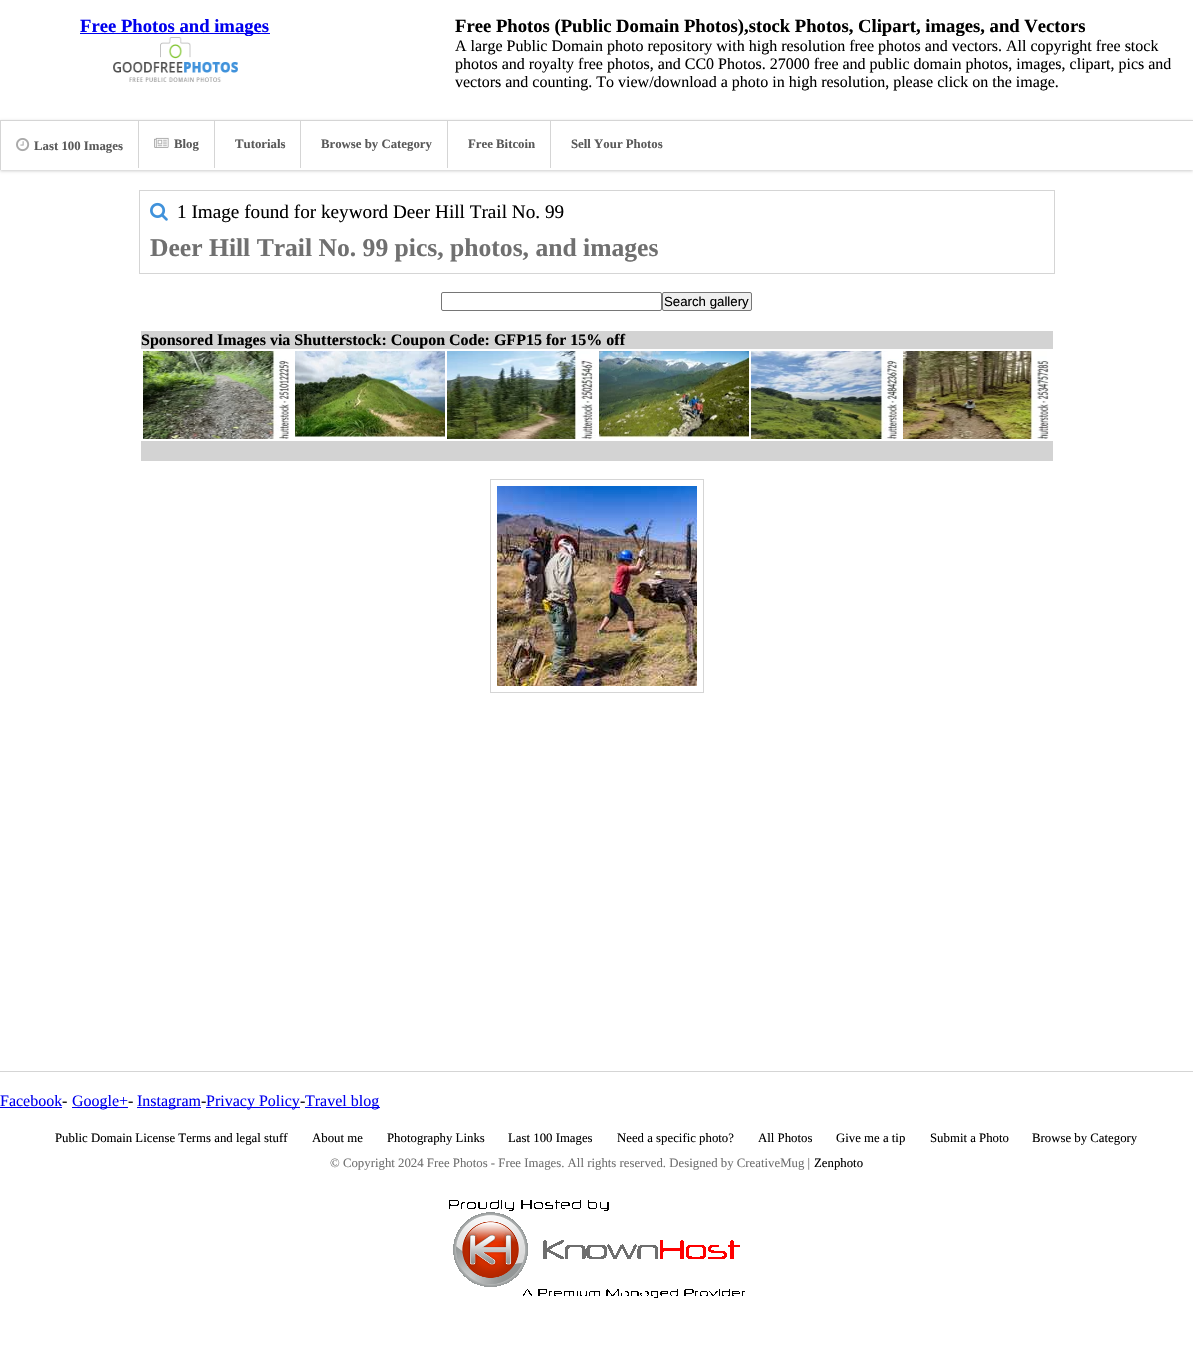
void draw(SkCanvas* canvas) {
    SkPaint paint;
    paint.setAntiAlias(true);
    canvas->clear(0xFFFFFFFF);
    paint.setColor(0xFF0000EE);
    canvas->drawRect(SkRect::MakeXYWH(80, 33, 190, 1), paint);
    SkFont font1(fontMgr->matchFamilyStyle("Liberation Serif", SkFontStyle::Bold()), 18.65f);
    font1.setSubpixel(true);
    canvas->drawString("Free Photos and images", 80, 32, font1, paint);
    canvas->drawImageRect(SkImages::DeferredFromEncodedData(SkData::MakeFromFileName("img1.png")), SkRect::MakeXYWH(113, 37, 125, 45), SkSamplingOptions());
    paint.setColor(0xFF000000);
    canvas->drawString("Free Photos (Public Domain Photos),stock Photos, Clipart, images, and Vectors", 455, 32, font1, paint);
    SkFont font2(fontMgr->matchFamilyStyle("Liberation Serif", SkFontStyle::Normal()), 16);
    font2.setSubpixel(true);
    canvas->drawString("A large Public Domain photo repository with high resolution free photos and vectors. All copyright free stock", 455, 51, font2, paint);
    canvas->drawString("photos and royalty free photos, and CC0 Photos. 27000 free and public domain photos, images, clipart, pics and", 455, 69, font2, paint);
    canvas->drawString("vectors and counting. To view/download a photo in high resolution, please click on the image.", 455, 87, font2, paint);
    canvas->save();
    canvas->clipPath(SkPathBuilder(SkPathFillType::kEvenOdd).moveTo(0, 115).lineTo(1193, 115).lineTo(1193, 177).lineTo(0, 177).close().moveTo(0, 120).lineTo(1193, 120).lineTo(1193, 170).lineTo(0, 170).close().detach(), true);
    paint.setColor(0x33000000);
    paint.setMaskFilter(SkMaskFilter::MakeBlur(kNormal_SkBlurStyle, 1.5f));
    canvas->drawRect(SkRect::MakeXYWH(0, 121, 1193, 50), paint);
    paint.setMaskFilter(nullptr);
    canvas->restore();
    paint.setColor(0xFFD5D5D5);
    canvas->drawRect(SkRect::MakeXYWH(0, 120, 1193, 1), paint);
    canvas->drawRect(SkRect::MakeXYWH(0, 121, 1, 49), paint);
    canvas->drawImageRect(SkImages::DeferredFromEncodedData(SkData::MakeFromFileName("img2.png")), SkRect::MakeXYWH(16, 138, 14, 14), SkSamplingOptions());
    SkFont font3(fontMgr->matchFamilyStyle("Liberation Serif", SkFontStyle::Bold()), 12.8f);
    font3.setSubpixel(true);
    paint.setColor(0xFF595959);
    canvas->drawString("Last 100 Images", 34, 150, font3, paint);
    paint.setColor(0xFFD5D5D5);
    canvas->drawRect(SkRect::MakeXYWH(138, 121, 1, 47), paint);
    canvas->drawImageRect(SkImages::DeferredFromEncodedData(SkData::MakeFromFileName("img3.png")), SkRect::MakeXYWH(154, 137, 15, 11), SkSamplingOptions());
    paint.setColor(0xFF595959);
    canvas->drawString("Blog", 174, 148, font3, paint);
    paint.setColor(0xFFD5D5D5);
    canvas->drawRect(SkRect::MakeXYWH(214, 121, 1, 47), paint);
    paint.setColor(0xFF595959);
    canvas->drawString("Tutorials", 235, 148, font3, paint);
    paint.setColor(0xFFD5D5D5);
    canvas->drawRect(SkRect::MakeXYWH(300, 121, 1, 47), paint);
    paint.setColor(0xFF595959);
    canvas->drawString("Browse by Category", 321, 148, font3, paint);
    paint.setColor(0xFFD5D5D5);
    canvas->drawRect(SkRect::MakeXYWH(447, 121, 1, 47), paint);
    paint.setColor(0xFF595959);
    canvas->drawString("Free Bitcoin", 468, 148, font3, paint);
    paint.setColor(0xFFD5D5D5);
    canvas->drawRect(SkRect::MakeXYWH(550, 121, 1, 47), paint);
    paint.setColor(0xFF595959);
    canvas->drawString("Sell Your Photos", 571, 148, font3, paint);
    paint.setStyle(SkPaint::kStroke_Style);
    paint.setStrokeWidth(1);
    paint.setColor(0xFFD5D5D5);
    canvas->drawRect(SkRect::MakeXYWH(139.5f, 190.5f, 915, 83), paint);
    canvas->drawImageRect(SkImages::DeferredFromEncodedData(SkData::MakeFromFileName("img4.png")), SkRect::MakeXYWH(150, 202, 18, 19), SkSamplingOptions());
    SkFont font4(fontMgr->matchFamilyStyle("Liberation Serif", SkFontStyle::Normal()), 19.2f);
    font4.setSubpixel(true);
    paint.setStyle(SkPaint::kFill_Style);
    paint.setColor(0xFF000000);
    canvas->drawString("1 Image found for keyword Deer Hill Trail No. 99", 177, 218, font4, paint);
    SkFont font5(fontMgr->matchFamilyStyle("Liberation Serif", SkFontStyle::Bold()), 25.6f);
    font5.setSubpixel(true);
    paint.setColor(0xFF707070);
    canvas->drawString("Deer Hill Trail No. 99 pics, photos, and images", 150, 256, font5, paint);
    paint.setStyle(SkPaint::kStroke_Style);
    paint.setColor(0xFF767676);
    canvas->drawRoundRect(SkRect::MakeXYWH(441.5f, 292.5f, 220, 18), 1.5f, 1.5f, paint);
    paint.setStyle(SkPaint::kFill_Style);
    paint.setColor(0xFFEFEFEF);
    canvas->drawRoundRect(SkRect::MakeXYWH(662.5f, 292.5f, 89, 18), 1.5f, 1.5f, paint);
    paint.setStyle(SkPaint::kStroke_Style);
    paint.setColor(0xFF767676);
    canvas->drawRoundRect(SkRect::MakeXYWH(662.5f, 292.5f, 89, 18), 1.5f, 1.5f, paint);
    SkFont font6(fontMgr->matchFamilyStyle("Liberation Sans", SkFontStyle::Normal()), 13.25f);
    font6.setSubpixel(true);
    paint.setStyle(SkPaint::kFill_Style);
    paint.setColor(0xFF000000);
    canvas->drawString("Search gallery", 664, 306, font6, paint);
    paint.setColor(0xFFD3D3D3);
    canvas->drawRect(SkRect::MakeXYWH(141, 331, 912, 18), paint);
    SkFont font7(fontMgr->matchFamilyStyle("Liberation Serif", SkFontStyle::Bold()), 16);
    font7.setSubpixel(true);
    paint.setColor(0xFF000000);
    canvas->drawString("Sponsored Images via Shutterstock: Coupon Code: GFP15 for 15% off", 141, 345, font7, paint);
    canvas->drawImageRect(SkImages::DeferredFromEncodedData(SkData::MakeFromFileName("img5.png")), SkRect::MakeXYWH(143, 351, 146, 88), SkSamplingOptions());
    canvas->drawImageRect(SkImages::DeferredFromEncodedData(SkData::MakeFromFileName("img6.png")), SkRect::MakeXYWH(295, 351, 150, 87), SkSamplingOptions());
    canvas->drawImageRect(SkImages::DeferredFromEncodedData(SkData::MakeFromFileName("img7.png")), SkRect::MakeXYWH(447, 351, 149, 88), SkSamplingOptions());
    canvas->drawImageRect(SkImages::DeferredFromEncodedData(SkData::MakeFromFileName("img8.png")), SkRect::MakeXYWH(599, 351, 150, 88), SkSamplingOptions());
    canvas->drawImageRect(SkImages::DeferredFromEncodedData(SkData::MakeFromFileName("img9.png")), SkRect::MakeXYWH(751, 351, 148, 88), SkSamplingOptions());
    canvas->drawImageRect(SkImages::DeferredFromEncodedData(SkData::MakeFromFileName("img10.png")), SkRect::MakeXYWH(903, 351, 146, 88), SkSamplingOptions());
    paint.setColor(0xFFD3D3D3);
    canvas->drawRect(SkRect::MakeXYWH(141, 441, 912, 20), paint);
    paint.setStyle(SkPaint::kStroke_Style);
    paint.setColor(0xFFD5D5D5);
    canvas->drawRect(SkRect::MakeXYWH(490.5f, 479.5f, 213, 213), paint);
    canvas->drawImageRect(SkImages::DeferredFromEncodedData(SkData::MakeFromFileName("img11.png")), SkRect::MakeXYWH(497, 486, 200, 200), SkSamplingOptions());
    paint.setStyle(SkPaint::kFill_Style);
    canvas->drawRect(SkRect::MakeXYWH(0, 1071, 1193, 1), paint);
    paint.setColor(0xFF0000EE);
    canvas->drawString("Facebook", 0, 1106, font2, paint);
    canvas->drawRect(SkRect::MakeXYWH(0, 1107, 62, 1), paint);
    paint.setColor(0xFF000000);
    canvas->drawString("-", 62, 1106, font2, paint);
    paint.setColor(0xFF0000EE);
    canvas->drawRect(SkRect::MakeXYWH(72, 1107, 56, 1), paint);
    canvas->drawString("Google+", 72, 1106, font2, paint);
    paint.setColor(0xFF000000);
    canvas->drawString("-", 128, 1106, font2, paint);
    paint.setColor(0xFF0000EE);
    canvas->drawRect(SkRect::MakeXYWH(137, 1107, 64, 1), paint);
    canvas->drawString("Instagram", 137, 1106, font2, paint);
    paint.setColor(0xFF000000);
    canvas->drawString("-", 201, 1106, font2, paint);
    paint.setColor(0xFF0000EE);
    canvas->drawRect(SkRect::MakeXYWH(206, 1107, 94, 1), paint);
    canvas->drawString("Privacy Policy", 206, 1106, font2, paint);
    paint.setColor(0xFF000000);
    canvas->drawString("-", 300, 1106, font2, paint);
    paint.setColor(0xFF0000EE);
    canvas->drawRect(SkRect::MakeXYWH(305, 1107, 75, 1), paint);
    canvas->drawString("Travel blog", 305, 1106, font2, paint);
    SkFont font8(fontMgr->matchFamilyStyle("Liberation Serif", SkFontStyle::Normal()), 12.8f);
    font8.setSubpixel(true);
    paint.setColor(0xFF000000);
    canvas->drawString("Public Domain License Terms and legal stuff", 55, 1142, font8, paint);
    canvas->drawString("About me", 312, 1142, font8, paint);
    canvas->drawString("Photography Links", 387, 1142, font8, paint);
    canvas->drawString("Last 100 Images", 508, 1142, font8, paint);
    canvas->drawString("Need a specific photo?", 617, 1142, font8, paint);
    canvas->drawString("All Photos", 758, 1142, font8, paint);
    canvas->drawString("Give me a tip", 836, 1142, font8, paint);
    canvas->drawString("Submit a Photo", 930, 1142, font8, paint);
    canvas->drawString("Browse by Category", 1032, 1142, font8, paint);
    paint.setColor(0xFF707070);
    canvas->drawString("© Copyright 2024 Free Photos - Free Images. All rights reserved. Designed by CreativeMug |", 330, 1167, font8, paint);
    paint.setColor(0xFF000000);
    canvas->drawString("Zenphoto", 814, 1167, font8, paint);
    canvas->drawImageRect(SkImages::DeferredFromEncodedData(SkData::MakeFromFileName("img12.png")), SkRect::MakeXYWH(449, 1200, 296, 98), SkSamplingOptions());
}
